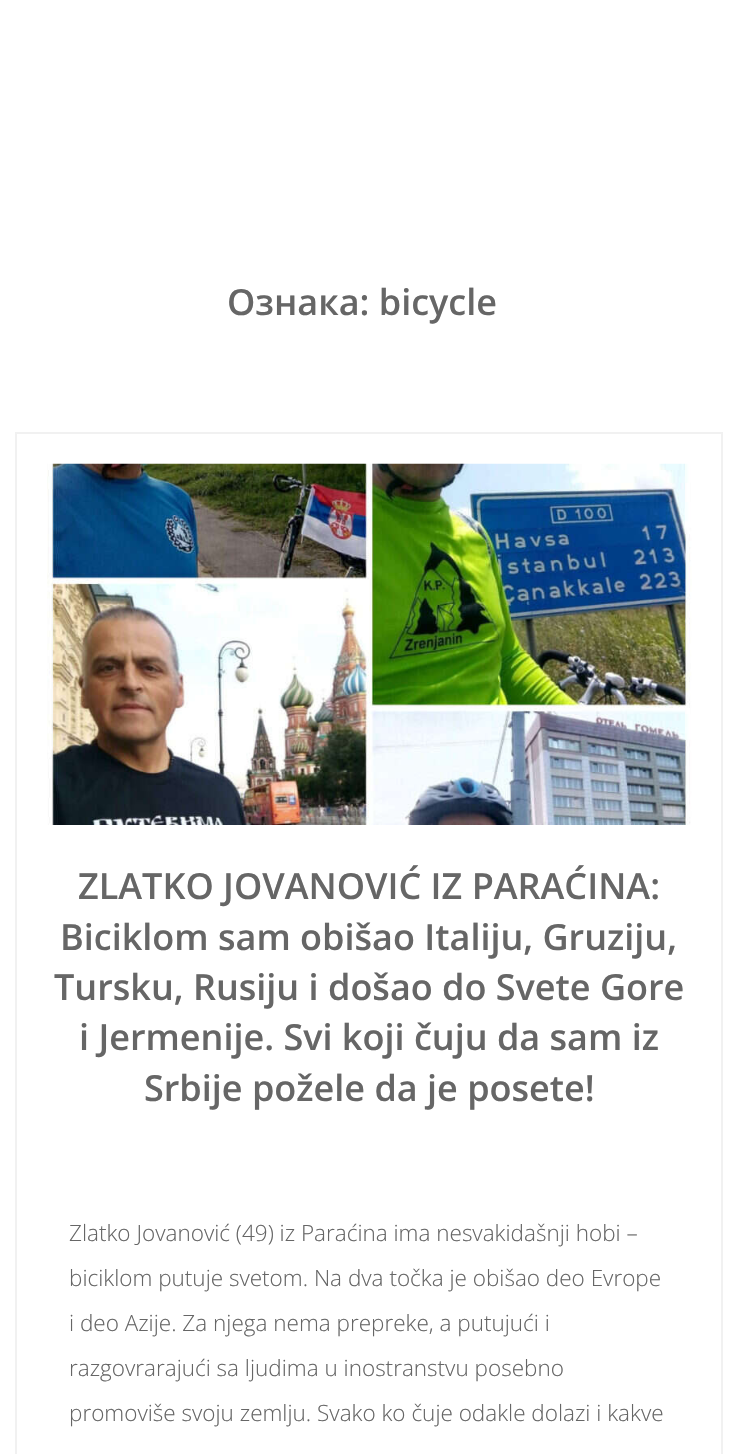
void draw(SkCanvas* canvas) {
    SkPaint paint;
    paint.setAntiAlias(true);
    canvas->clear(0xFFFFFFFF);
    SkFont font1(fontMgr->matchFamilyStyle("Open Sans", SkFontStyle(600, SkFontStyle::kNormal_Width, SkFontStyle::kUpright_Slant)), 36);
    font1.setSubpixel(true);
    paint.setColor(0xFF666666);
    canvas->drawString("Ознака: bicycle", 227, 315, font1, paint);
    paint.setStyle(SkPaint::kStroke_Style);
    paint.setStrokeWidth(2);
    paint.setColor(0xFFF1F1F1);
    canvas->drawRect(SkRect::MakeXYWH(16, 433, 706, 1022), paint);
    canvas->drawImageRect(SkImages::DeferredFromEncodedData(SkData::MakeFromFileName("img1.png")), SkRect::MakeXYWH(47, 463, 645, 362), SkSamplingOptions());
    paint.setStyle(SkPaint::kFill_Style);
    paint.setColor(0xFF666666);
    canvas->drawString("ZLATKO JOVANOVIĆ IZ PARAĆINA:", 78, 899, font1, paint);
    canvas->drawString("Biciklom sam obišao Italiju, Gruziju,", 60, 950, font1, paint);
    canvas->drawString("Tursku, Rusiju i došao do Svete Gore", 54, 1000, font1, paint);
    canvas->drawString("i Jermenije. Svi koji čuju da sam iz", 79, 1050, font1, paint);
    canvas->drawString("Srbije požele da je posete!", 144, 1101, font1, paint);
    SkFont font2(fontMgr->matchFamilyStyle("Open Sans", SkFontStyle(300, SkFontStyle::kNormal_Width, SkFontStyle::kUpright_Slant)), 22.5f);
    font2.setSubpixel(true);
    canvas->drawString("Zlatko Jovanović (49) iz Paraćina ima nesvakidašnji hobi –", 69, 1241, font2, paint);
    canvas->drawString("biciklom putuje svetom. Na dva točka je obišao deo Evrope", 69, 1286, font2, paint);
    canvas->drawString("i deo Azije. Za njega nema prepreke, a putujući i", 69, 1331, font2, paint);
    canvas->drawString("razgovrarajući sa ljudima u inostranstvu posebno", 69, 1376, font2, paint);
    canvas->drawString("promoviše svoju zemlju. Svako ko čuje odakle dolazi i kakve", 69, 1421, font2, paint);
}
